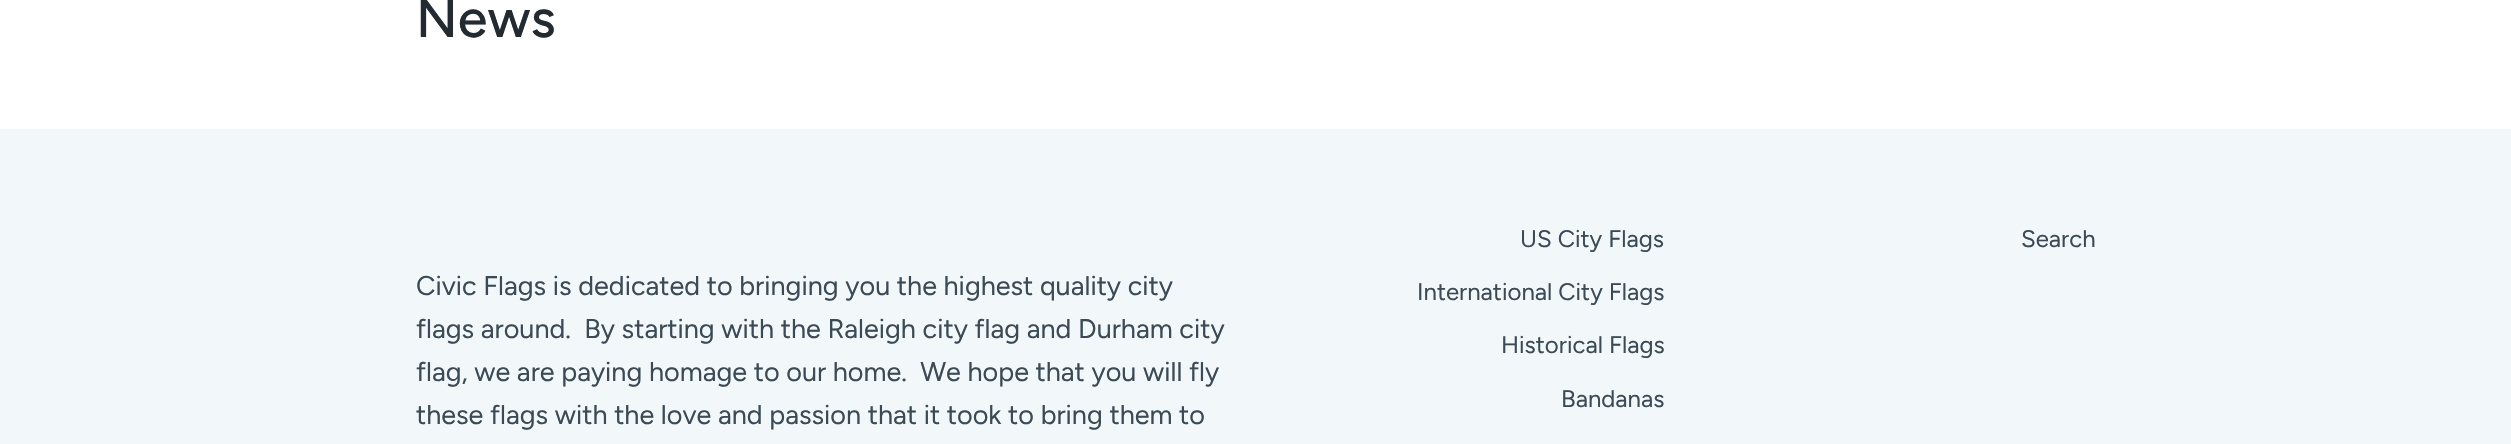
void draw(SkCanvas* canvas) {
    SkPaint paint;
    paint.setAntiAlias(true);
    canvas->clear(0xFFFFFFFF);
    SkFont font1(fontMgr->matchFamilyStyle("Figtree", SkFontStyle(500, SkFontStyle::kNormal_Width, SkFontStyle::kUpright_Slant)), 54);
    font1.setSubpixel(true);
    paint.setColor(0xFF212B31);
    canvas->drawString("News", 416, 37, font1, paint);
    paint.setColor(0xFFF2F7FA);
    canvas->drawRect(SkRect::MakeXYWH(0, 129, 2511, 315), paint);
    SkFont font2(fontMgr->matchFamilyStyle("Figtree", SkFontStyle::Normal()), 27);
    font2.setSubpixel(true);
    paint.setColor(0xFF3A4B55);
    canvas->drawString("Civic Flags is dedicated to bringing you the highest quality city", 416, 295, font2, paint);
    canvas->drawString("flags around.  By starting with the Raleigh city flag and Durham city", 416, 338, font2, paint);
    canvas->drawString("flag, we are paying homage to our home.  We hope that you will fly", 416, 381, font2, paint);
    canvas->drawString("these flags with the love and passion that it took to bring them to", 416, 424, font2, paint);
    SkFont font3(fontMgr->matchFamilyStyle("Figtree", SkFontStyle::Normal()), 24);
    font3.setSubpixel(true);
    canvas->drawString("US City Flags", 1520, 247, font3, paint);
    canvas->drawString("International City Flags", 1417, 300, font3, paint);
    canvas->drawString("Historical Flags", 1501, 353, font3, paint);
    canvas->drawString("Bandanas", 1561, 407, font3, paint);
    canvas->drawString("Search", 2021, 247, font3, paint);
}
